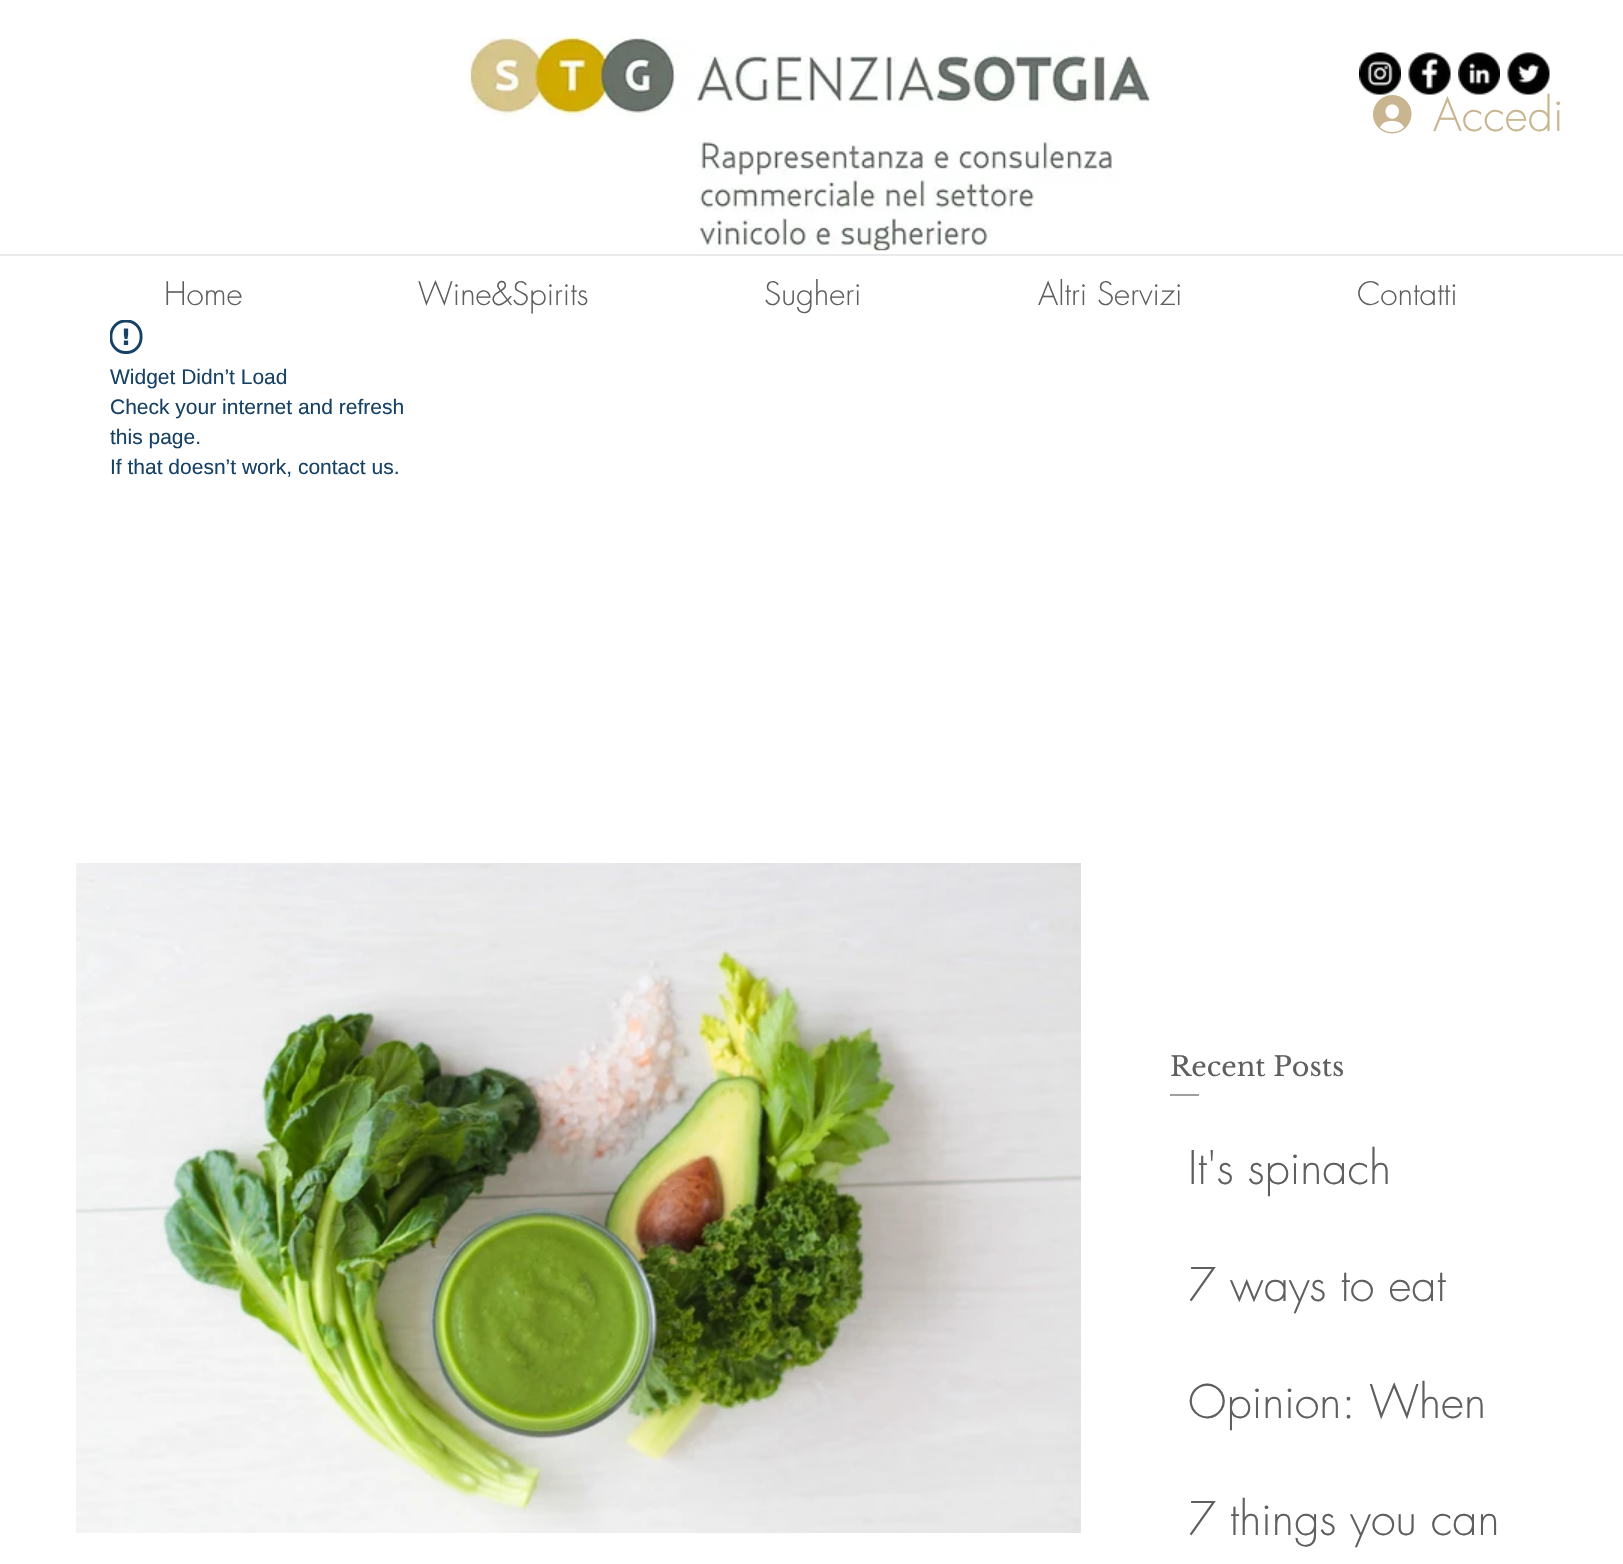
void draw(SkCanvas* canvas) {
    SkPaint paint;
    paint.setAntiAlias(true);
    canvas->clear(0xFFFFFFFF);
    canvas->drawImageRect(SkImages::DeferredFromEncodedData(SkData::MakeFromFileName("img1.png")), SkRect::MakeXYWH(468, 37, 684, 214), SkSamplingOptions());
    canvas->drawImageRect(SkImages::DeferredFromEncodedData(SkData::MakeFromFileName("img2.png")), SkRect::MakeXYWH(1359, 52, 42, 43), SkSamplingOptions());
    canvas->drawImageRect(SkImages::DeferredFromEncodedData(SkData::MakeFromFileName("img3.png")), SkRect::MakeXYWH(1408, 52, 43, 43), SkSamplingOptions());
    canvas->drawImageRect(SkImages::DeferredFromEncodedData(SkData::MakeFromFileName("img4.png")), SkRect::MakeXYWH(1458, 52, 42, 43), SkSamplingOptions());
    canvas->drawImageRect(SkImages::DeferredFromEncodedData(SkData::MakeFromFileName("img5.png")), SkRect::MakeXYWH(1507, 52, 43, 43), SkSamplingOptions());
    canvas->drawImageRect(SkImages::DeferredFromEncodedData(SkData::MakeFromFileName("img6.png")), SkRect::MakeXYWH(1373, 95, 39, 39), SkSamplingOptions());
    SkFont font1(fontMgr->matchFamilyStyle("futura", SkFontStyle(300, SkFontStyle::kNormal_Width, SkFontStyle::kUpright_Slant)), 45);
    font1.setSubpixel(true);
    paint.setColor(0xFFC9B691);
    canvas->drawString("Accedi", 1433, 131, font1, paint);
    paint.setColor(0xFFE9E9E9);
    canvas->drawRect(SkRect::MakeXYWH(0, 254, 1623, 2), paint);
    SkFont font2(fontMgr->matchFamilyStyle("futura", SkFontStyle(300, SkFontStyle::kNormal_Width, SkFontStyle::kUpright_Slant)), 31.5f);
    font2.setSubpixel(true);
    paint.setColor(0xFF605E5E);
    canvas->drawString("Home", 164, 305, font2, paint);
    canvas->drawString("Wine&Spirits", 418, 305, font2, paint);
    canvas->drawString("Sugheri", 764, 305, font2, paint);
    canvas->drawString("Altri Servizi", 1038, 305, font2, paint);
    canvas->drawString("Contatti", 1357, 305, font2, paint);
    canvas->drawImageRect(SkImages::DeferredFromEncodedData(SkData::MakeFromFileName("img7.png")), SkRect::MakeXYWH(110, 320, 33, 34), SkSamplingOptions());
    SkFont font3(fontMgr->matchFamilyStyle("Liberation Sans", SkFontStyle::Normal()), 21);
    font3.setSubpixel(true);
    paint.setColor(0xFF174165);
    canvas->drawString("Widget Didn’t Load", 110, 384, font3, paint);
    canvas->drawString("Check your internet and refresh", 110, 414, font3, paint);
    canvas->drawString("this page.", 110, 444, font3, paint);
    canvas->drawString("If that doesn’t work, contact us.", 110, 474, font3, paint);
    canvas->drawImageRect(SkImages::DeferredFromEncodedData(SkData::MakeFromFileName("img8.png")), SkRect::MakeXYWH(76, 863, 1005, 670), SkSamplingOptions());
    SkFont font4(fontMgr->matchFamilyStyle("Libre Baskerville", SkFontStyle::Normal()), 27);
    font4.setSubpixel(true);
    paint.setColor(0xFF605E5E);
    canvas->drawString("Recent Posts", 1170, 1076, font4, paint);
    paint.setColor(0xFFA0A09F);
    canvas->drawRect(SkRect::MakeXYWH(1170, 1094, 29, 2), paint);
    paint.setColor(0xFF605E5E);
    canvas->drawString("It's spinach", 1188, 1184, font1, paint);
    canvas->drawString("7 ways to eat", 1188, 1301, font1, paint);
    canvas->drawString("Opinion: When", 1188, 1418, font1, paint);
    canvas->drawString("7 things you can", 1188, 1535, font1, paint);
}
